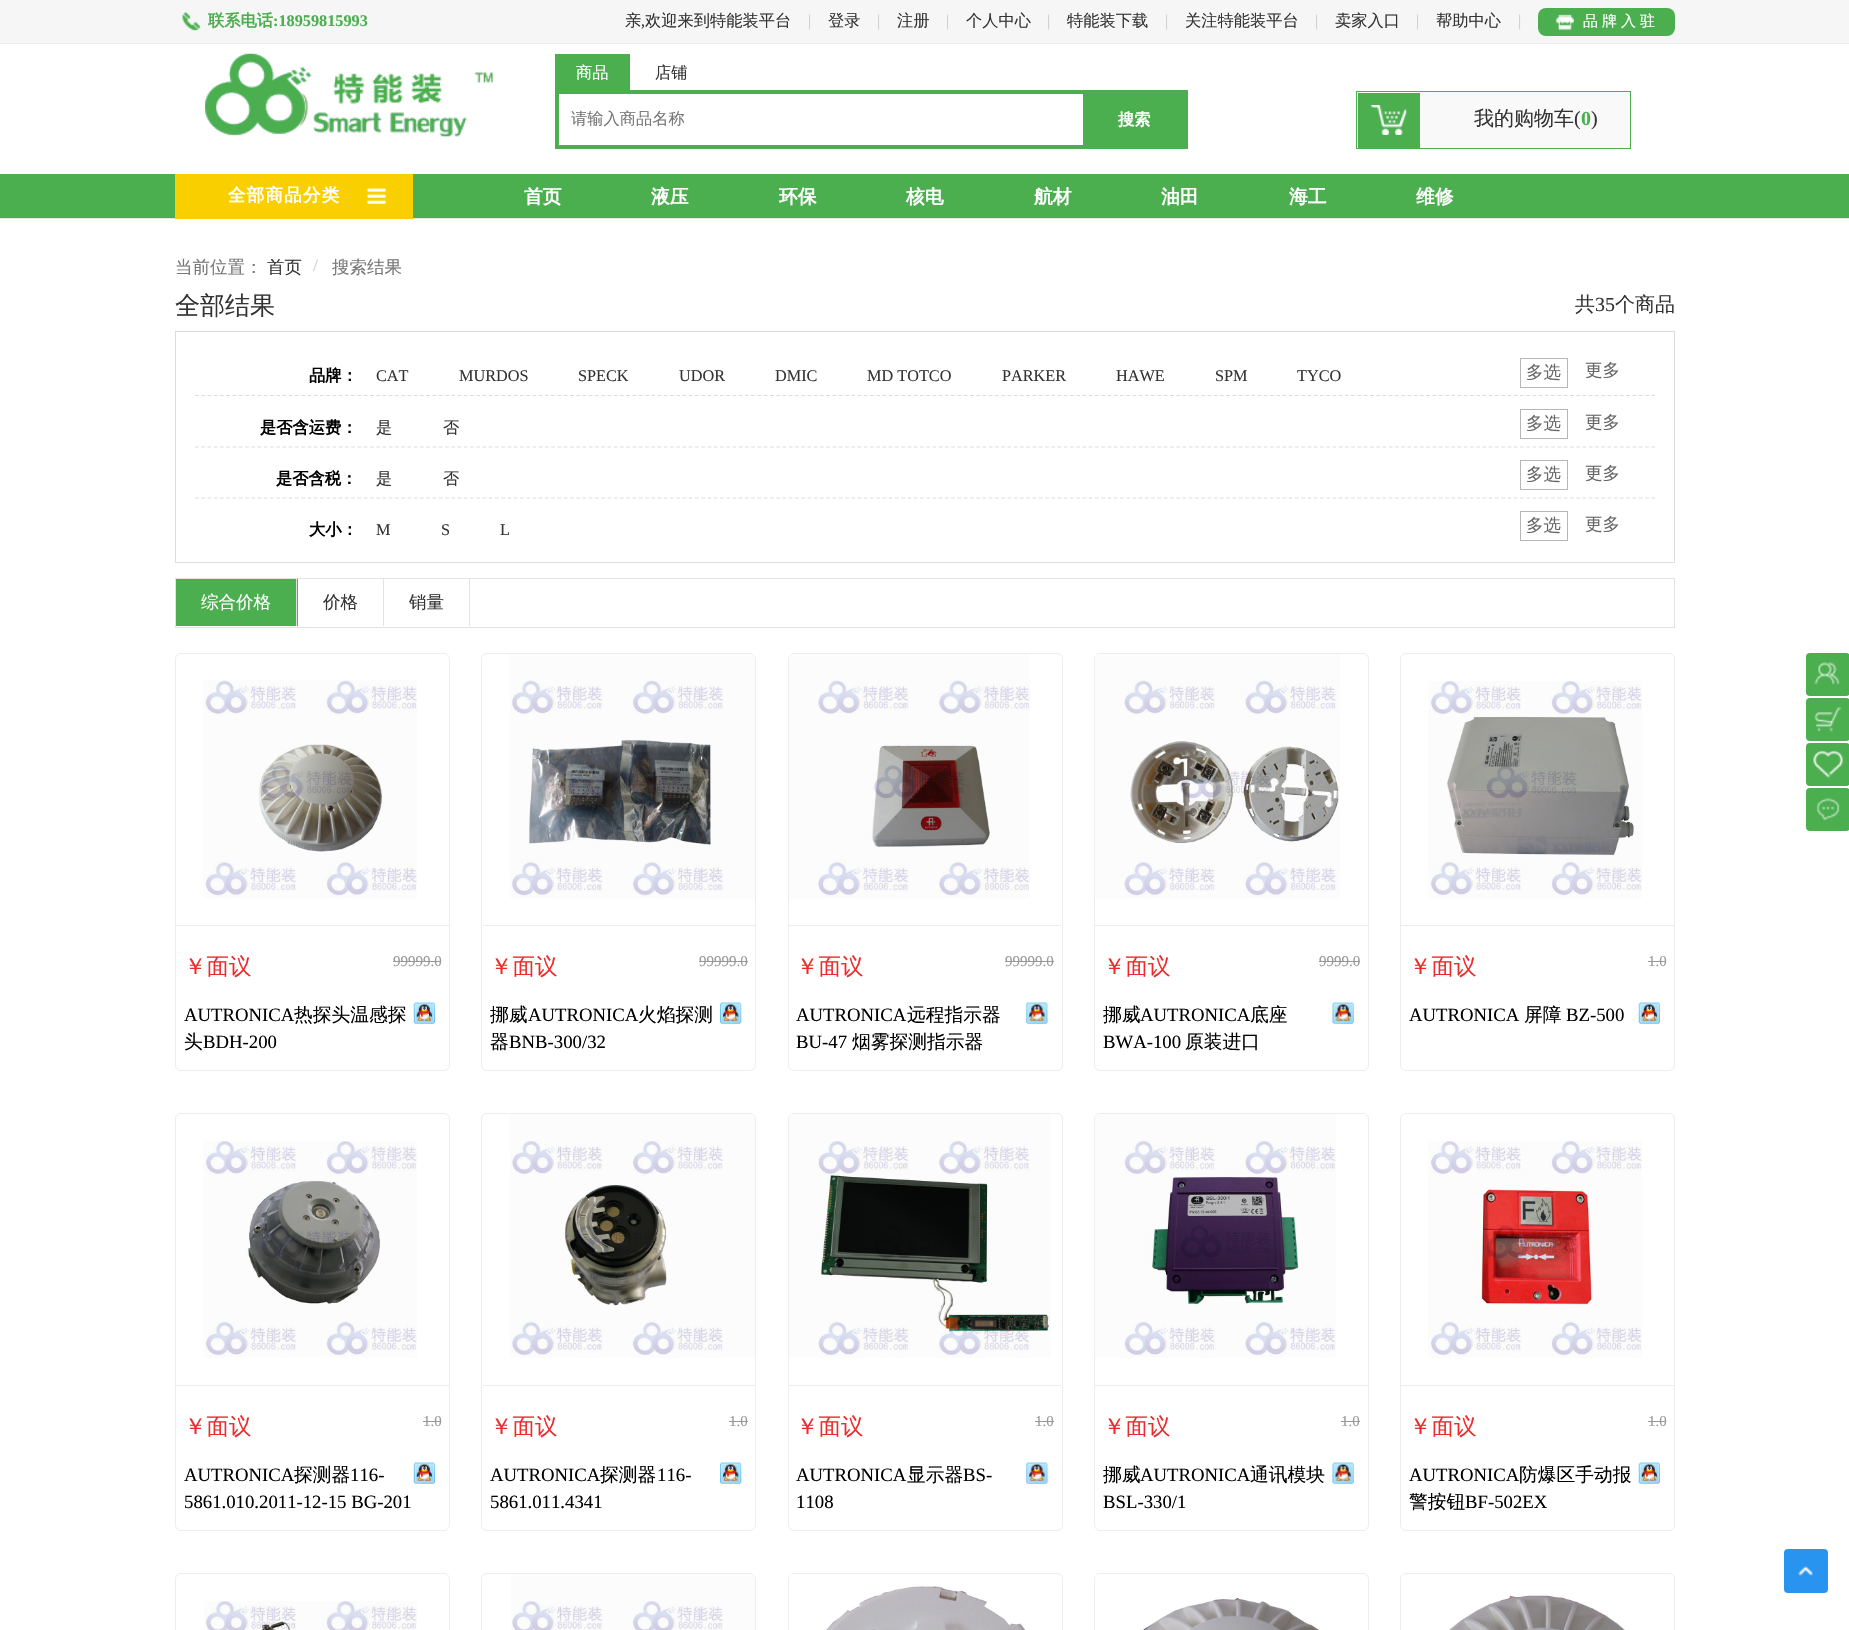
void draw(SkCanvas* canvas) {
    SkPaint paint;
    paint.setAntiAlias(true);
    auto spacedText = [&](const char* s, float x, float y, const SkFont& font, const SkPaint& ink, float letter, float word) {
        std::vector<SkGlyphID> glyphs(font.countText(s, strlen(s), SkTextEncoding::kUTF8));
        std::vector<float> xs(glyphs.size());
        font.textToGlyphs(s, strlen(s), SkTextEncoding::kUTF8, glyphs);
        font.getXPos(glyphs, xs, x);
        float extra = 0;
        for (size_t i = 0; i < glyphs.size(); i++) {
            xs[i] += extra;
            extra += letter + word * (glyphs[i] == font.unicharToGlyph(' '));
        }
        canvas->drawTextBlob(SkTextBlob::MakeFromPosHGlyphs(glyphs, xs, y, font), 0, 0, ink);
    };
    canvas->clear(0xFFFFFFFF);
    paint.setColor(0xFFF6F6F6);
    canvas->drawRect(SkRect::MakeXYWH(0, 0, 1849, 43), paint);
    paint.setColor(0xFFEEEEEE);
    canvas->drawRect(SkRect::MakeXYWH(0, 43, 1849, 1), paint);
    canvas->drawImageRect(SkImages::DeferredFromEncodedData(SkData::MakeFromFileName("img1.png")), SkRect::MakeXYWH(182, 12, 19, 19), SkSamplingOptions());
    SkFont font1(fontMgr->matchFamilyStyle("WenQuanYi Zen Hei", SkFontStyle::Bold()), 16.25f);
    font1.setSubpixel(true);
    paint.setColor(0xFF4BAE4F);
    canvas->drawString("联系电话", 208, 26, font1, paint);
    SkFont font2(fontMgr->matchFamilyStyle("Liberation Serif", SkFontStyle::Bold()), 16.25f);
    font2.setSubpixel(true);
    canvas->drawString(":18959815993", 273, 26, font2, paint);
    SkFont font3(fontMgr->matchFamilyStyle("WenQuanYi Zen Hei", SkFontStyle(500, SkFontStyle::kNormal_Width, SkFontStyle::kUpright_Slant)), 16.25f);
    font3.setSubpixel(true);
    paint.setColor(0xFF333333);
    canvas->drawString("亲", 625, 26, font3, paint);
    SkFont font4(fontMgr->matchFamilyStyle("Liberation Serif", SkFontStyle::Normal()), 16.25f);
    font4.setSubpixel(true);
    canvas->drawString(",", 641, 26, font4, paint);
    canvas->drawString("欢迎来到特能装平台", 645, 26, font3, paint);
    paint.setColor(0xFFCCCCCC);
    canvas->drawString("|", 808, 26, font4, paint);
    paint.setColor(0xFF333333);
    canvas->drawString("登录", 828, 26, font3, paint);
    paint.setColor(0xFFCCCCCC);
    canvas->drawString("|", 877, 26, font4, paint);
    paint.setColor(0xFF333333);
    canvas->drawString("注册", 897, 26, font3, paint);
    paint.setColor(0xFFCCCCCC);
    canvas->drawString("|", 946, 26, font4, paint);
    paint.setColor(0xFF333333);
    canvas->drawString("个人中心", 966, 26, font3, paint);
    paint.setColor(0xFFCCCCCC);
    canvas->drawString("|", 1047, 26, font4, paint);
    paint.setColor(0xFF333333);
    canvas->drawString("特能装下载", 1067, 26, font3, paint);
    paint.setColor(0xFFCCCCCC);
    canvas->drawString("|", 1165, 26, font4, paint);
    paint.setColor(0xFF333333);
    canvas->drawString("关注特能装平台", 1185, 26, font3, paint);
    paint.setColor(0xFFCCCCCC);
    canvas->drawString("|", 1315, 26, font4, paint);
    paint.setColor(0xFF333333);
    canvas->drawString("卖家入口", 1335, 26, font3, paint);
    paint.setColor(0xFFCCCCCC);
    canvas->drawString("|", 1416, 26, font4, paint);
    paint.setColor(0xFF333333);
    canvas->drawString("帮助中心", 1436, 26, font3, paint);
    paint.setColor(0xFFCCCCCC);
    canvas->drawString("|", 1518, 26, font4, paint);
    paint.setColor(0xFF4BAE4F);
    canvas->drawRoundRect(SkRect::MakeXYWH(1538, 8, 137, 28), 8, 8, paint);
    canvas->drawImageRect(SkImages::DeferredFromEncodedData(SkData::MakeFromFileName("img2.png")), SkRect::MakeXYWH(1556, 14, 18, 17), SkSamplingOptions());
    SkFont font5(fontMgr->matchFamilyStyle("WenQuanYi Zen Hei", SkFontStyle(500, SkFontStyle::kNormal_Width, SkFontStyle::kUpright_Slant)), 15);
    font5.setSubpixel(true);
    paint.setColor(0xFFFFFFFF);
    spacedText("品牌入驻", 1583, 26, font5, paint, 4, 0);
    canvas->drawImageRect(SkImages::DeferredFromEncodedData(SkData::MakeFromFileName("img3.png")), SkRect::MakeXYWH(204, 53, 289, 84), SkSamplingOptions());
    paint.setColor(0xFF4BAE4F);
    canvas->drawRect(SkRect::MakeXYWH(555, 54, 75, 36), paint);
    paint.setColor(0xFFFFFFFF);
    canvas->drawString("商品", 576, 78, font3, paint);
    paint.setColor(0xFF333333);
    canvas->drawString("店铺", 655, 78, font3, paint);
    paint.setStyle(SkPaint::kStroke_Style);
    paint.setStrokeWidth(4);
    paint.setColor(0xFF4BAE4F);
    canvas->drawRect(SkRect::MakeXYWH(557, 92, 629, 55), paint);
    paint.setStyle(SkPaint::kFill_Style);
    paint.setColor(0xFF777777);
    canvas->drawString("请输入商品名称", 571, 124, font3, paint);
    paint.setColor(0xFF4BAE4F);
    canvas->drawRect(SkRect::MakeXYWH(1083, 94, 101, 51), paint);
    paint.setColor(0xFFFFFFFF);
    canvas->drawString("搜索", 1118, 125, font1, paint);
    paint.setColor(0xFFF9F9F9);
    canvas->drawRect(SkRect::MakeXYWH(1356.5f, 91.5f, 274, 57), paint);
    paint.setStyle(SkPaint::kStroke_Style);
    paint.setStrokeWidth(1);
    paint.setColor(0xFF4BAE4F);
    canvas->drawRect(SkRect::MakeXYWH(1356.5f, 91.5f, 274, 57), paint);
    paint.setStyle(SkPaint::kFill_Style);
    canvas->drawRect(SkRect::MakeXYWH(1358, 93, 62, 55), paint);
    canvas->drawImageRect(SkImages::DeferredFromEncodedData(SkData::MakeFromFileName("img4.png")), SkRect::MakeXYWH(1371, 105, 36, 30), SkSamplingOptions());
    SkFont font6(fontMgr->matchFamilyStyle("WenQuanYi Zen Hei", SkFontStyle(500, SkFontStyle::kNormal_Width, SkFontStyle::kUpright_Slant)), 20);
    font6.setSubpixel(true);
    paint.setColor(0xFF333333);
    canvas->drawString("我的购物车", 1474, 125, font6, paint);
    SkFont font7(fontMgr->matchFamilyStyle("Liberation Serif", SkFontStyle::Normal()), 20);
    font7.setSubpixel(true);
    canvas->drawString("(", 1574, 125, font7, paint);
    SkFont font8(fontMgr->matchFamilyStyle("Liberation Serif", SkFontStyle::Bold()), 20);
    font8.setSubpixel(true);
    paint.setColor(0xFF4BAE4F);
    canvas->drawString("0", 1581, 125, font8, paint);
    paint.setColor(0xFF333333);
    canvas->drawString(")", 1591, 125, font7, paint);
    paint.setColor(0xFF4BAE4F);
    canvas->drawRect(SkRect::MakeXYWH(0, 174, 1849, 44), paint);
    paint.setColor(0xFFE5E5E5);
    canvas->drawRect(SkRect::MakeXYWH(0, 218, 1849, 1), paint);
    paint.setColor(0xFFFACF00);
    canvas->drawRect(SkRect::MakeXYWH(175, 174, 238, 45), paint);
    SkFont font9(fontMgr->matchFamilyStyle("WenQuanYi Zen Hei", SkFontStyle::Bold()), 17.5f);
    font9.setSubpixel(true);
    paint.setColor(0xFFFFFFFF);
    spacedText("全部商品分类", 228, 201, font9, paint, 1.25f, 0);
    canvas->drawImageRect(SkImages::DeferredFromEncodedData(SkData::MakeFromFileName("img5.png")), SkRect::MakeXYWH(367, 188, 19, 16), SkSamplingOptions());
    SkFont font10(fontMgr->matchFamilyStyle("WenQuanYi Zen Hei", SkFontStyle::Bold()), 18.75f);
    font10.setSubpixel(true);
    canvas->drawString("首页", 524, 203, font10, paint);
    canvas->drawString("液压", 651, 203, font10, paint);
    canvas->drawString("环保", 779, 203, font10, paint);
    canvas->drawString("核电", 906, 203, font10, paint);
    canvas->drawString("航材", 1034, 203, font10, paint);
    canvas->drawString("油田", 1161, 203, font10, paint);
    canvas->drawString("海工", 1289, 203, font10, paint);
    canvas->drawString("维修", 1416, 203, font10, paint);
    SkFont font11(fontMgr->matchFamilyStyle("WenQuanYi Zen Hei", SkFontStyle(500, SkFontStyle::kNormal_Width, SkFontStyle::kUpright_Slant)), 17.5f);
    font11.setSubpixel(true);
    paint.setColor(0xFF777777);
    canvas->drawString("当前位置：", 175, 273, font11, paint);
    paint.setColor(0xFF333333);
    canvas->drawString("首页", 267, 273, font11, paint);
    SkFont font12(fontMgr->matchFamilyStyle("Liberation Serif", SkFontStyle::Normal()), 17.5f);
    font12.setSubpixel(true);
    paint.setColor(0xFFCCCCCC);
    canvas->drawString("/", 313, 271, font12, paint);
    paint.setColor(0xFF777777);
    canvas->drawString("搜索结果", 332, 273, font11, paint);
    SkFont font13(fontMgr->matchFamilyStyle("WenQuanYi Zen Hei", SkFontStyle(500, SkFontStyle::kNormal_Width, SkFontStyle::kUpright_Slant)), 25);
    font13.setSubpixel(true);
    paint.setColor(0xFF333333);
    canvas->drawString("全部结果", 175, 314, font13, paint);
    canvas->drawString("共", 1575, 311, font6, paint);
    canvas->drawString("35", 1595, 311, font7, paint);
    canvas->drawString("个商品", 1615, 311, font6, paint);
    paint.setStyle(SkPaint::kStroke_Style);
    paint.setColor(0xFFDCDCDC);
    canvas->drawRect(SkRect::MakeXYWH(175.5f, 331.5f, 1499, 231), paint);
    paint.setStrokeWidth(1.2f);
    paint.setPathEffect(SkDashPathEffect::Make({{3.75f, 2.5f}}, 0));
    canvas->drawPath(SkPathBuilder().moveTo(195, 395.5f).lineTo(1655, 395.5f).detach(), paint);
    paint.setPathEffect(nullptr);
    paint.setStyle(SkPaint::kFill_Style);
    paint.setColor(0xFF000000);
    canvas->drawString("品牌：", 309, 381, font1, paint);
    paint.setColor(0xFF333333);
    canvas->drawString("CAT", 376, 381, font4, paint);
    canvas->drawString("MURDOS", 459, 381, font4, paint);
    canvas->drawString("SPECK", 578, 381, font4, paint);
    canvas->drawString("UDOR", 679, 381, font4, paint);
    canvas->drawString("DMIC", 775, 381, font4, paint);
    canvas->drawString("MD TOTCO", 867, 381, font4, paint);
    canvas->drawString("PARKER", 1002, 381, font4, paint);
    canvas->drawString("HAWE", 1116, 381, font4, paint);
    canvas->drawString("SPM", 1215, 381, font4, paint);
    canvas->drawString("TYCO", 1297, 381, font4, paint);
    paint.setStyle(SkPaint::kStroke_Style);
    paint.setStrokeWidth(1);
    paint.setColor(0xFFB7B7B7);
    canvas->drawRect(SkRect::MakeXYWH(1520.5f, 358.5f, 47, 29), paint);
    paint.setStyle(SkPaint::kFill_Style);
    paint.setColor(0xFF666666);
    canvas->drawString("多选", 1526, 378, font11, paint);
    canvas->drawString("更多", 1585, 376, font11, paint);
    paint.setStyle(SkPaint::kStroke_Style);
    paint.setStrokeWidth(1.2f);
    paint.setColor(0xFFDCDCDC);
    paint.setPathEffect(SkDashPathEffect::Make({{3.75f, 2.5f}}, 0));
    canvas->drawPath(SkPathBuilder().moveTo(195, 447).lineTo(1655, 447).detach(), paint);
    paint.setPathEffect(nullptr);
    paint.setStyle(SkPaint::kFill_Style);
    paint.setColor(0xFF000000);
    canvas->drawString("是否含运费：", 260, 433, font1, paint);
    paint.setColor(0xFF333333);
    canvas->drawString("是", 376, 433, font3, paint);
    canvas->drawString("否", 443, 433, font3, paint);
    paint.setStyle(SkPaint::kStroke_Style);
    paint.setStrokeWidth(1);
    paint.setColor(0xFFB7B7B7);
    canvas->drawRect(SkRect::MakeXYWH(1520.5f, 409.5f, 47, 29), paint);
    paint.setStyle(SkPaint::kFill_Style);
    paint.setColor(0xFF666666);
    canvas->drawString("多选", 1526, 429, font11, paint);
    canvas->drawString("更多", 1585, 428, font11, paint);
    paint.setStyle(SkPaint::kStroke_Style);
    paint.setStrokeWidth(1.2f);
    paint.setColor(0xFFDCDCDC);
    paint.setPathEffect(SkDashPathEffect::Make({{3.75f, 2.5f}}, 0));
    canvas->drawPath(SkPathBuilder().moveTo(195, 498).lineTo(1655, 498).detach(), paint);
    paint.setPathEffect(nullptr);
    paint.setStyle(SkPaint::kFill_Style);
    paint.setColor(0xFF000000);
    canvas->drawString("是否含税：", 276, 484, font1, paint);
    paint.setColor(0xFF333333);
    canvas->drawString("是", 376, 484, font3, paint);
    canvas->drawString("否", 443, 484, font3, paint);
    paint.setStyle(SkPaint::kStroke_Style);
    paint.setStrokeWidth(1);
    paint.setColor(0xFFB7B7B7);
    canvas->drawRect(SkRect::MakeXYWH(1520.5f, 460.5f, 47, 29), paint);
    paint.setStyle(SkPaint::kFill_Style);
    paint.setColor(0xFF666666);
    canvas->drawString("多选", 1526, 480, font11, paint);
    canvas->drawString("更多", 1585, 479, font11, paint);
    paint.setColor(0xFF000000);
    canvas->drawString("大小：", 309, 535, font1, paint);
    paint.setColor(0xFF333333);
    canvas->drawString("M", 376, 535, font4, paint);
    canvas->drawString("S", 441, 535, font4, paint);
    canvas->drawString("L", 500, 535, font4, paint);
    paint.setStyle(SkPaint::kStroke_Style);
    paint.setColor(0xFFB7B7B7);
    canvas->drawRect(SkRect::MakeXYWH(1520.5f, 511.5f, 47, 29), paint);
    paint.setStyle(SkPaint::kFill_Style);
    paint.setColor(0xFF666666);
    canvas->drawString("多选", 1526, 531, font11, paint);
    canvas->drawString("更多", 1585, 530, font11, paint);
    paint.setStyle(SkPaint::kStroke_Style);
    paint.setColor(0xFFE3E3E3);
    canvas->drawRect(SkRect::MakeXYWH(175.5f, 578.5f, 1499, 49), paint);
    paint.setStyle(SkPaint::kFill_Style);
    paint.setColor(0xFF4BAE4F);
    canvas->drawRect(SkRect::MakeXYWH(176, 579, 122, 47), paint);
    paint.setColor(0xFFE3E3E3);
    canvas->drawRect(SkRect::MakeXYWH(296, 579, 1, 47), paint);
    paint.setColor(0xFFFFFFFF);
    canvas->drawString("综合价格", 201, 608, font11, paint);
    paint.setColor(0xFFE3E3E3);
    canvas->drawRect(SkRect::MakeXYWH(383, 579, 1, 47), paint);
    paint.setColor(0xFF333333);
    canvas->drawString("价格", 323, 608, font11, paint);
    paint.setColor(0xFFE3E3E3);
    canvas->drawRect(SkRect::MakeXYWH(469, 579, 1, 47), paint);
    paint.setColor(0xFF333333);
    canvas->drawString("销量", 409, 608, font11, paint);
    paint.setStyle(SkPaint::kStroke_Style);
    paint.setColor(0xFFEDEDED);
    canvas->drawRoundRect(SkRect::MakeXYWH(175.5f, 653.5f, 274, 417), 5.5f, 5.5f, paint);
    canvas->drawImageRect(SkImages::DeferredFromEncodedData(SkData::MakeFromFileName("img6.png")), SkRect::MakeXYWH(203, 680, 214, 218), SkSamplingOptions());
    paint.setStyle(SkPaint::kFill_Style);
    canvas->drawRect(SkRect::MakeXYWH(176, 925, 273, 1), paint);
    SkFont font14(fontMgr->matchFamilyStyle("WenQuanYi Zen Hei", SkFontStyle(500, SkFontStyle::kNormal_Width, SkFontStyle::kUpright_Slant)), 22.5f);
    font14.setSubpixel(true);
    paint.setColor(0xFFED2B2B);
    canvas->drawString("￥面议", 184, 974, font14, paint);
    SkFont font15(fontMgr->matchFamilyStyle("Liberation Serif", SkFontStyle::Normal()), 15);
    font15.setSubpixel(true);
    paint.setColor(0xFF999999);
    canvas->drawString("99999.0", 393, 966, font15, paint);
    canvas->drawRect(SkRect::MakeXYWH(393, 961, 48, 1), paint);
    SkFont font16(fontMgr->matchFamilyStyle("Liberation Serif", SkFontStyle::Normal()), 18.75f);
    font16.setSubpixel(true);
    paint.setColor(0xFF000000);
    canvas->drawString("AUTRONICA", 184, 1021, font16, paint);
    SkFont font17(fontMgr->matchFamilyStyle("WenQuanYi Zen Hei", SkFontStyle(500, SkFontStyle::kNormal_Width, SkFontStyle::kUpright_Slant)), 18.75f);
    font17.setSubpixel(true);
    canvas->drawString("热探头温感探", 294, 1021, font17, paint);
    canvas->drawImageRect(SkImages::DeferredFromEncodedData(SkData::MakeFromFileName("img7.png")), SkRect::MakeXYWH(413, 1002, 22, 22), SkSamplingOptions());
    canvas->drawString("头", 184, 1048, font17, paint);
    canvas->drawString("BDH-200", 203, 1048, font16, paint);
    paint.setStyle(SkPaint::kStroke_Style);
    paint.setColor(0xFFEDEDED);
    canvas->drawRoundRect(SkRect::MakeXYWH(481.5f, 653.5f, 274, 417), 5.5f, 5.5f, paint);
    canvas->drawImageRect(SkImages::DeferredFromEncodedData(SkData::MakeFromFileName("img8.png")), SkRect::MakeXYWH(510, 654, 245, 244), SkSamplingOptions());
    paint.setStyle(SkPaint::kFill_Style);
    canvas->drawRect(SkRect::MakeXYWH(483, 925, 272, 1), paint);
    paint.setColor(0xFFED2B2B);
    canvas->drawString("￥面议", 490, 974, font14, paint);
    paint.setColor(0xFF999999);
    canvas->drawString("99999.0", 699, 966, font15, paint);
    canvas->drawRect(SkRect::MakeXYWH(699, 961, 49, 1), paint);
    paint.setColor(0xFF000000);
    canvas->drawString("挪威", 490, 1021, font17, paint);
    canvas->drawString("AUTRONICA", 528, 1021, font16, paint);
    canvas->drawString("火焰探测", 638, 1021, font17, paint);
    canvas->drawImageRect(SkImages::DeferredFromEncodedData(SkData::MakeFromFileName("img9.png")), SkRect::MakeXYWH(720, 1002, 22, 22), SkSamplingOptions());
    canvas->drawString("器", 490, 1048, font17, paint);
    canvas->drawString("BNB-300/32", 509, 1048, font16, paint);
    paint.setStyle(SkPaint::kStroke_Style);
    paint.setColor(0xFFEDEDED);
    canvas->drawRoundRect(SkRect::MakeXYWH(788.5f, 653.5f, 274, 417), 5.5f, 5.5f, paint);
    canvas->drawImageRect(SkImages::DeferredFromEncodedData(SkData::MakeFromFileName("img10.png")), SkRect::MakeXYWH(789, 654, 241, 244), SkSamplingOptions());
    paint.setStyle(SkPaint::kFill_Style);
    canvas->drawRect(SkRect::MakeXYWH(789, 925, 272, 1), paint);
    paint.setColor(0xFFED2B2B);
    canvas->drawString("￥面议", 796, 974, font14, paint);
    paint.setColor(0xFF999999);
    canvas->drawString("99999.0", 1005, 966, font15, paint);
    canvas->drawRect(SkRect::MakeXYWH(1005, 961, 49, 1), paint);
    paint.setColor(0xFF000000);
    canvas->drawString("AUTRONICA", 796, 1021, font16, paint);
    canvas->drawString("远程指示器", 907, 1021, font17, paint);
    canvas->drawImageRect(SkImages::DeferredFromEncodedData(SkData::MakeFromFileName("img11.png")), SkRect::MakeXYWH(1026, 1002, 22, 22), SkSamplingOptions());
    canvas->drawString("BU-47", 796, 1048, font16, paint);
    canvas->drawString("烟雾探测指示器", 852, 1048, font17, paint);
    paint.setStyle(SkPaint::kStroke_Style);
    paint.setColor(0xFFEDEDED);
    canvas->drawRoundRect(SkRect::MakeXYWH(1094.5f, 653.5f, 274, 417), 5.5f, 5.5f, paint);
    canvas->drawImageRect(SkImages::DeferredFromEncodedData(SkData::MakeFromFileName("img12.png")), SkRect::MakeXYWH(1095, 654, 245, 244), SkSamplingOptions());
    paint.setStyle(SkPaint::kFill_Style);
    canvas->drawRect(SkRect::MakeXYWH(1095, 925, 273, 1), paint);
    paint.setColor(0xFFED2B2B);
    canvas->drawString("￥面议", 1103, 974, font14, paint);
    paint.setColor(0xFF999999);
    canvas->drawString("9999.0", 1319, 966, font15, paint);
    canvas->drawRect(SkRect::MakeXYWH(1319, 961, 41, 1), paint);
    canvas->save();
    canvas->clipRect(SkRect::MakeXYWH(1103, 990, 257, 63));
    paint.setColor(0xFF000000);
    canvas->drawString("挪威", 1103, 1021, font17, paint);
    canvas->restore();
    canvas->drawString("AUTRONICA", 1140, 1021, font16, paint);
    canvas->drawString("底座", 1250, 1021, font17, paint);
    canvas->drawImageRect(SkImages::DeferredFromEncodedData(SkData::MakeFromFileName("img13.png")), SkRect::MakeXYWH(1332, 1002, 22, 22), SkSamplingOptions());
    canvas->drawString("BWA-100", 1103, 1048, font16, paint);
    canvas->drawString("原装进口", 1185, 1048, font17, paint);
    paint.setStyle(SkPaint::kStroke_Style);
    paint.setColor(0xFFEDEDED);
    canvas->drawRoundRect(SkRect::MakeXYWH(1400.5f, 653.5f, 274, 417), 5.5f, 5.5f, paint);
    canvas->drawImageRect(SkImages::DeferredFromEncodedData(SkData::MakeFromFileName("img14.png")), SkRect::MakeXYWH(1428, 681, 214, 217), SkSamplingOptions());
    paint.setStyle(SkPaint::kFill_Style);
    canvas->drawRect(SkRect::MakeXYWH(1401, 925, 273, 1), paint);
    paint.setColor(0xFFED2B2B);
    canvas->drawString("￥面议", 1409, 974, font14, paint);
    paint.setColor(0xFF999999);
    canvas->drawString("1.0", 1648, 966, font15, paint);
    canvas->drawRect(SkRect::MakeXYWH(1648, 961, 18, 1), paint);
    paint.setColor(0xFF000000);
    canvas->drawString("AUTRONICA", 1409, 1021, font16, paint);
    canvas->drawString("屏障", 1524, 1021, font17, paint);
    canvas->drawString("BZ-500", 1566, 1021, font16, paint);
    canvas->drawImageRect(SkImages::DeferredFromEncodedData(SkData::MakeFromFileName("img7.png")), SkRect::MakeXYWH(1638, 1002, 22, 22), SkSamplingOptions());
    paint.setStyle(SkPaint::kStroke_Style);
    paint.setColor(0xFFEDEDED);
    canvas->drawRoundRect(SkRect::MakeXYWH(175.5f, 1113.5f, 274, 417), 5.5f, 5.5f, paint);
    canvas->drawImageRect(SkImages::DeferredFromEncodedData(SkData::MakeFromFileName("img15.png")), SkRect::MakeXYWH(203, 1141, 214, 217), SkSamplingOptions());
    paint.setStyle(SkPaint::kFill_Style);
    canvas->drawRect(SkRect::MakeXYWH(176, 1385, 273, 1), paint);
    paint.setColor(0xFFED2B2B);
    canvas->drawString("￥面议", 184, 1434, font14, paint);
    paint.setColor(0xFF999999);
    canvas->drawString("1.0", 423, 1426, font15, paint);
    canvas->drawRect(SkRect::MakeXYWH(423, 1421, 18, 1), paint);
    paint.setColor(0xFF000000);
    canvas->drawString("AUTRONICA", 184, 1481, font16, paint);
    canvas->drawString("探测器", 294, 1481, font17, paint);
    canvas->drawString("116-", 350, 1481, font16, paint);
    canvas->drawImageRect(SkImages::DeferredFromEncodedData(SkData::MakeFromFileName("img7.png")), SkRect::MakeXYWH(413, 1462, 22, 22), SkSamplingOptions());
    canvas->drawString("5861.010.2011-12-15 BG-201", 184, 1508, font16, paint);
    paint.setStyle(SkPaint::kStroke_Style);
    paint.setColor(0xFFEDEDED);
    canvas->drawRoundRect(SkRect::MakeXYWH(481.5f, 1113.5f, 274, 417), 5.5f, 5.5f, paint);
    canvas->drawImageRect(SkImages::DeferredFromEncodedData(SkData::MakeFromFileName("img16.png")), SkRect::MakeXYWH(510, 1114, 245, 244), SkSamplingOptions());
    paint.setStyle(SkPaint::kFill_Style);
    canvas->drawRect(SkRect::MakeXYWH(483, 1385, 272, 1), paint);
    paint.setColor(0xFFED2B2B);
    canvas->drawString("￥面议", 490, 1434, font14, paint);
    paint.setColor(0xFF999999);
    canvas->drawString("1.0", 729, 1426, font15, paint);
    canvas->drawRect(SkRect::MakeXYWH(729, 1421, 19, 1), paint);
    paint.setColor(0xFF000000);
    canvas->drawString("AUTRONICA", 490, 1481, font16, paint);
    canvas->drawString("探测器", 600, 1481, font17, paint);
    canvas->drawString("116-", 657, 1481, font16, paint);
    canvas->drawImageRect(SkImages::DeferredFromEncodedData(SkData::MakeFromFileName("img9.png")), SkRect::MakeXYWH(720, 1462, 22, 22), SkSamplingOptions());
    canvas->drawString("5861.011.4341", 490, 1508, font16, paint);
    paint.setStyle(SkPaint::kStroke_Style);
    paint.setColor(0xFFEDEDED);
    canvas->drawRoundRect(SkRect::MakeXYWH(788.5f, 1113.5f, 274, 417), 5.5f, 5.5f, paint);
    canvas->drawImageRect(SkImages::DeferredFromEncodedData(SkData::MakeFromFileName("img17.png")), SkRect::MakeXYWH(789, 1114, 262, 244), SkSamplingOptions());
    paint.setStyle(SkPaint::kFill_Style);
    canvas->drawRect(SkRect::MakeXYWH(789, 1385, 272, 1), paint);
    paint.setColor(0xFFED2B2B);
    canvas->drawString("￥面议", 796, 1434, font14, paint);
    paint.setColor(0xFF999999);
    canvas->drawString("1.0", 1035, 1426, font15, paint);
    canvas->drawRect(SkRect::MakeXYWH(1035, 1421, 19, 1), paint);
    paint.setColor(0xFF000000);
    canvas->drawString("AUTRONICA", 796, 1481, font16, paint);
    canvas->drawString("显示器", 907, 1481, font17, paint);
    canvas->drawString("BS-", 963, 1481, font16, paint);
    canvas->drawImageRect(SkImages::DeferredFromEncodedData(SkData::MakeFromFileName("img11.png")), SkRect::MakeXYWH(1026, 1462, 22, 22), SkSamplingOptions());
    canvas->drawString("1108", 796, 1508, font16, paint);
    paint.setStyle(SkPaint::kStroke_Style);
    paint.setColor(0xFFEDEDED);
    canvas->drawRoundRect(SkRect::MakeXYWH(1094.5f, 1113.5f, 274, 417), 5.5f, 5.5f, paint);
    canvas->drawImageRect(SkImages::DeferredFromEncodedData(SkData::MakeFromFileName("img18.png")), SkRect::MakeXYWH(1095, 1114, 241, 244), SkSamplingOptions());
    paint.setStyle(SkPaint::kFill_Style);
    canvas->drawRect(SkRect::MakeXYWH(1095, 1385, 273, 1), paint);
    paint.setColor(0xFFED2B2B);
    canvas->drawString("￥面议", 1103, 1434, font14, paint);
    paint.setColor(0xFF999999);
    canvas->drawString("1.0", 1341, 1426, font15, paint);
    canvas->drawRect(SkRect::MakeXYWH(1341, 1421, 19, 1), paint);
    canvas->save();
    canvas->clipRect(SkRect::MakeXYWH(1103, 1450, 257, 63));
    paint.setColor(0xFF000000);
    canvas->drawString("挪威", 1103, 1481, font17, paint);
    canvas->restore();
    canvas->drawString("AUTRONICA", 1140, 1481, font16, paint);
    canvas->drawString("通讯模块", 1250, 1481, font17, paint);
    canvas->drawImageRect(SkImages::DeferredFromEncodedData(SkData::MakeFromFileName("img13.png")), SkRect::MakeXYWH(1332, 1462, 22, 22), SkSamplingOptions());
    canvas->drawString("BSL-330/1", 1103, 1508, font16, paint);
    paint.setStyle(SkPaint::kStroke_Style);
    paint.setColor(0xFFEDEDED);
    canvas->drawRoundRect(SkRect::MakeXYWH(1400.5f, 1113.5f, 274, 417), 5.5f, 5.5f, paint);
    canvas->drawImageRect(SkImages::DeferredFromEncodedData(SkData::MakeFromFileName("img19.png")), SkRect::MakeXYWH(1428, 1141, 214, 217), SkSamplingOptions());
    paint.setStyle(SkPaint::kFill_Style);
    canvas->drawRect(SkRect::MakeXYWH(1401, 1385, 273, 1), paint);
    paint.setColor(0xFFED2B2B);
    canvas->drawString("￥面议", 1409, 1434, font14, paint);
    paint.setColor(0xFF999999);
    canvas->drawString("1.0", 1648, 1426, font15, paint);
    canvas->drawRect(SkRect::MakeXYWH(1648, 1421, 18, 1), paint);
    paint.setColor(0xFF000000);
    canvas->drawString("AUTRONICA", 1409, 1481, font16, paint);
    canvas->drawString("防爆区手动报", 1519, 1481, font17, paint);
    canvas->drawImageRect(SkImages::DeferredFromEncodedData(SkData::MakeFromFileName("img7.png")), SkRect::MakeXYWH(1638, 1462, 22, 22), SkSamplingOptions());
    canvas->drawString("警按钮", 1409, 1508, font17, paint);
    canvas->drawString("BF-502EX", 1465, 1508, font16, paint);
    paint.setStyle(SkPaint::kStroke_Style);
    paint.setColor(0xFFEDEDED);
    canvas->drawRoundRect(SkRect::MakeXYWH(175.5f, 1573.5f, 274, 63), 5.5f, 5.5f, paint);
    canvas->drawImageRect(SkImages::DeferredFromEncodedData(SkData::MakeFromFileName("img20.png")), SkRect::MakeXYWH(204, 1601, 213, 29), SkSamplingOptions());
    canvas->drawRoundRect(SkRect::MakeXYWH(481.5f, 1573.5f, 274, 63), 5.5f, 5.5f, paint);
    canvas->drawImageRect(SkImages::DeferredFromEncodedData(SkData::MakeFromFileName("img21.png")), SkRect::MakeXYWH(511, 1574, 244, 56), SkSamplingOptions());
    canvas->drawRoundRect(SkRect::MakeXYWH(788.5f, 1573.5f, 274, 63), 5.5f, 5.5f, paint);
    canvas->drawImageRect(SkImages::DeferredFromEncodedData(SkData::MakeFromFileName("img22.png")), SkRect::MakeXYWH(789, 1574, 237, 56), SkSamplingOptions());
    canvas->drawRoundRect(SkRect::MakeXYWH(1094.5f, 1573.5f, 274, 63), 5.5f, 5.5f, paint);
    canvas->drawImageRect(SkImages::DeferredFromEncodedData(SkData::MakeFromFileName("img23.png")), SkRect::MakeXYWH(1095, 1574, 226, 56), SkSamplingOptions());
    canvas->drawRoundRect(SkRect::MakeXYWH(1400.5f, 1573.5f, 274, 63), 5.5f, 5.5f, paint);
    canvas->drawImageRect(SkImages::DeferredFromEncodedData(SkData::MakeFromFileName("img24.png")), SkRect::MakeXYWH(1402, 1574, 271, 56), SkSamplingOptions());
    paint.setStyle(SkPaint::kFill_Style);
    paint.setColor(0xFF4BAE4F);
    canvas->drawRoundRect(SkRect::MakeXYWH(1806, 653, 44, 43), 4, 4, paint);
    canvas->drawImageRect(SkImages::DeferredFromEncodedData(SkData::MakeFromFileName("img25.png")), SkRect::MakeXYWH(1814, 662, 26, 23), SkSamplingOptions());
    canvas->drawRoundRect(SkRect::MakeXYWH(1806, 698, 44, 43), 4, 4, paint);
    canvas->drawImageRect(SkImages::DeferredFromEncodedData(SkData::MakeFromFileName("img26.png")), SkRect::MakeXYWH(1814, 707, 28, 25), SkSamplingOptions());
    canvas->drawRoundRect(SkRect::MakeXYWH(1806, 743, 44, 43), 4, 4, paint);
    canvas->drawImageRect(SkImages::DeferredFromEncodedData(SkData::MakeFromFileName("img27.png")), SkRect::MakeXYWH(1813, 750, 31, 29), SkSamplingOptions());
    canvas->drawRoundRect(SkRect::MakeXYWH(1806, 788, 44, 43), 4, 4, paint);
    canvas->drawImageRect(SkImages::DeferredFromEncodedData(SkData::MakeFromFileName("img28.png")), SkRect::MakeXYWH(1817, 798, 23, 23), SkSamplingOptions());
    paint.setColor(0xFF2994F0);
    canvas->drawRoundRect(SkRect::MakeXYWH(1784, 1549, 44, 44), 4, 4, paint);
    canvas->drawImageRect(SkImages::DeferredFromEncodedData(SkData::MakeFromFileName("img29.png")), SkRect::MakeXYWH(1798, 1566, 15, 10), SkSamplingOptions());
}
